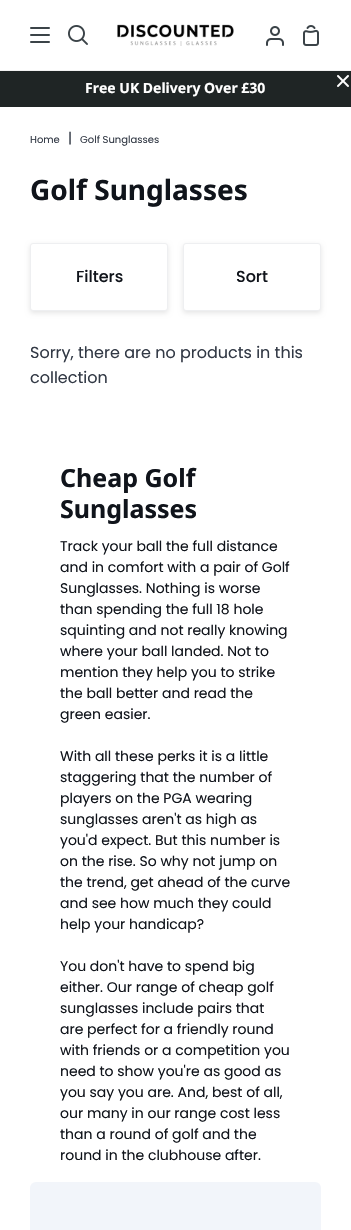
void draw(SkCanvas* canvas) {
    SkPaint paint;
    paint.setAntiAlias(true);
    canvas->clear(0xFFFFFFFF);
    paint.setColor(0xFFF2F2F2);
    canvas->drawRect(SkRect::MakeXYWH(0, 70, 351, 1), paint);
    paint.setColor(0xFF3B4348);
    canvas->drawRoundRect(SkRect::MakeXYWH(30, 27, 20, 2), 1, 1, paint);
    canvas->drawRoundRect(SkRect::MakeXYWH(30, 34, 20, 2), 1, 1, paint);
    canvas->drawRoundRect(SkRect::MakeXYWH(30, 41, 20, 2), 1, 1, paint);
    canvas->drawImageRect(SkImages::DeferredFromEncodedData(SkData::MakeFromFileName("img1.png")), SkRect::MakeXYWH(68, 25, 20, 20), SkSamplingOptions());
    canvas->drawImageRect(SkImages::DeferredFromEncodedData(SkData::MakeFromFileName("img2.png")), SkRect::MakeXYWH(117, 24, 117, 22), SkSamplingOptions());
    canvas->drawImageRect(SkImages::DeferredFromEncodedData(SkData::MakeFromFileName("img3.png")), SkRect::MakeXYWH(266, 26, 18, 20), SkSamplingOptions());
    canvas->drawImageRect(SkImages::DeferredFromEncodedData(SkData::MakeFromFileName("img4.png")), SkRect::MakeXYWH(303, 25, 16, 21), SkSamplingOptions());
    paint.setColor(0xFF1F2525);
    canvas->drawRect(SkRect::MakeXYWH(0, 71, 351, 36), paint);
    SkFont font1(fontMgr->matchFamilyStyle("Noto Sans", SkFontStyle::Bold()), 14);
    font1.setSubpixel(true);
    paint.setColor(0xFFFFFFFF);
    canvas->drawString("Free UK Delivery Over £30", 85, 93, font1, paint);
    canvas->drawImageRect(SkImages::DeferredFromEncodedData(SkData::MakeFromFileName("img5.png")), SkRect::MakeXYWH(337, 75, 12, 12), SkSamplingOptions());
    SkFont font2(fontMgr->matchFamilyStyle("Poppins", SkFontStyle::Normal()), 10);
    font2.setSubpixel(true);
    paint.setColor(0xFF323945);
    canvas->drawString("Home", 30, 143, font2, paint);
    SkFont font3(fontMgr->matchFamilyStyle("Poppins", SkFontStyle::Normal()), 14);
    font3.setSubpixel(true);
    canvas->drawString("|", 68, 143, font3, paint);
    canvas->drawString("Golf Sunglasses", 80, 143, font2, paint);
    SkFont font4(fontMgr->matchFamilyStyle("Noto Sans", SkFontStyle::Bold()), 28);
    font4.setSubpixel(true);
    paint.setColor(0xFF10141B);
    canvas->drawString("Golf Sunglasses", 30, 200, font4, paint);
    paint.setColor(0x1A000000);
    paint.setMaskFilter(SkMaskFilter::MakeBlur(kNormal_SkBlurStyle, 2.5f));
    canvas->drawRoundRect(SkRect::MakeXYWH(30, 245, 138, 68), 3, 3, paint);
    paint.setMaskFilter(nullptr);
    paint.setColor(0xFFFFFFFF);
    canvas->drawRoundRect(SkRect::MakeXYWH(30.5f, 243.5f, 137, 67), 2.5f, 2.5f, paint);
    paint.setStyle(SkPaint::kStroke_Style);
    paint.setStrokeWidth(1);
    paint.setColor(0xFFEEEFF1);
    canvas->drawRoundRect(SkRect::MakeXYWH(30.5f, 243.5f, 137, 67), 2.5f, 2.5f, paint);
    SkFont font5(fontMgr->matchFamilyStyle("Poppins", SkFontStyle(500, SkFontStyle::kNormal_Width, SkFontStyle::kUpright_Slant)), 16);
    font5.setSubpixel(true);
    paint.setStyle(SkPaint::kFill_Style);
    paint.setColor(0xFF10141B);
    canvas->drawString("Filters", 76, 282, font5, paint);
    paint.setColor(0x1A000000);
    paint.setMaskFilter(SkMaskFilter::MakeBlur(kNormal_SkBlurStyle, 2.5f));
    canvas->drawRoundRect(SkRect::MakeXYWH(183, 245, 138, 68), 3, 3, paint);
    paint.setMaskFilter(nullptr);
    paint.setColor(0xFFFFFFFF);
    canvas->drawRoundRect(SkRect::MakeXYWH(183.5f, 243.5f, 137, 67), 2.5f, 2.5f, paint);
    paint.setStyle(SkPaint::kStroke_Style);
    paint.setColor(0xFFEEEFF1);
    canvas->drawRoundRect(SkRect::MakeXYWH(183.5f, 243.5f, 137, 67), 2.5f, 2.5f, paint);
    paint.setStyle(SkPaint::kFill_Style);
    paint.setColor(0xFF10141B);
    canvas->drawString("Sort", 236, 282, font5, paint);
    SkFont font6(fontMgr->matchFamilyStyle("Poppins", SkFontStyle::Normal()), 16);
    font6.setSubpixel(true);
    paint.setColor(0xFF323945);
    canvas->drawString("Sorry, there are no products in this", 30, 358, font6, paint);
    canvas->drawString("collection", 30, 383, font6, paint);
    SkFont font7(fontMgr->matchFamilyStyle("Noto Sans", SkFontStyle::Bold()), 25);
    font7.setSubpixel(true);
    paint.setColor(0xFF10141B);
    canvas->drawString("Cheap Golf", 60, 487, font7, paint);
    canvas->drawString("Sunglasses", 60, 518, font7, paint);
    canvas->drawString("Track your ball the full distance", 60, 551, font3, paint);
    canvas->drawString("and in comfort with a pair of Golf", 60, 572, font3, paint);
    canvas->drawString("Sunglasses. Nothing is worse", 60, 593, font3, paint);
    canvas->drawString("than spending the full 18 hole", 60, 614, font3, paint);
    canvas->drawString("squinting and not really knowing", 60, 635, font3, paint);
    canvas->drawString("where your ball landed. Not to", 60, 656, font3, paint);
    canvas->drawString("mention they help you to strike", 60, 677, font3, paint);
    canvas->drawString("the ball better and read the", 60, 698, font3, paint);
    canvas->drawString("green easier.", 60, 719, font3, paint);
    canvas->drawString("With all these perks it is a little", 60, 761, font3, paint);
    canvas->drawString("staggering that the number of", 60, 782, font3, paint);
    canvas->drawString("players on the PGA wearing", 60, 803, font3, paint);
    canvas->drawString("sunglasses aren't as high as", 60, 824, font3, paint);
    canvas->drawString("you'd expect. But this number is", 60, 845, font3, paint);
    canvas->drawString("on the rise. So why not jump on", 60, 866, font3, paint);
    canvas->drawString("the trend, get ahead of the curve", 60, 887, font3, paint);
    canvas->drawString("and see how much they could", 60, 908, font3, paint);
    canvas->drawString("help your handicap?", 60, 929, font3, paint);
    canvas->drawString("You don't have to spend big", 60, 971, font3, paint);
    canvas->drawString("either. Our range of cheap golf", 60, 992, font3, paint);
    canvas->drawString("sunglasses include pairs that", 60, 1013, font3, paint);
    canvas->drawString("are perfect for a friendly round", 60, 1034, font3, paint);
    canvas->drawString("with friends or a competition you", 60, 1055, font3, paint);
    canvas->drawString("need to show you're as good as", 60, 1076, font3, paint);
    canvas->drawString("you say you are. And, best of all,", 60, 1097, font3, paint);
    canvas->drawString("our many in our range cost less", 60, 1118, font3, paint);
    canvas->drawString("than a round of golf and the", 60, 1139, font3, paint);
    canvas->drawString("round in the clubhouse after.", 60, 1160, font3, paint);
    paint.setColor(0xFFF2F5FA);
    canvas->drawRoundRect(SkRect::MakeXYWH(30, 1182, 291, 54), 6, 6, paint);
}
